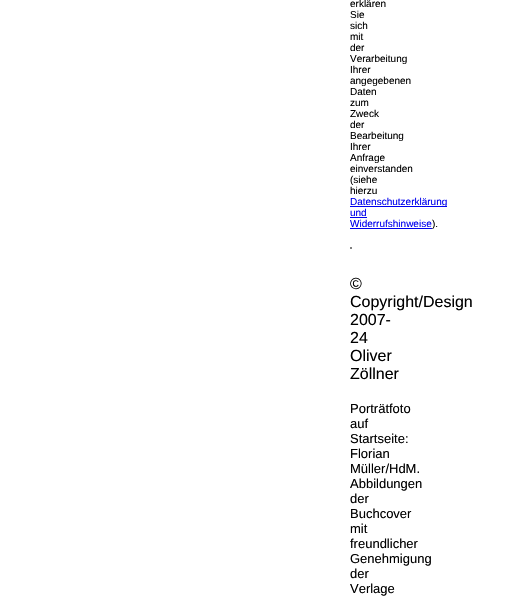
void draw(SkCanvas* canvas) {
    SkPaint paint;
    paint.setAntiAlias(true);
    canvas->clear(0xFFFFFFFF);
    SkFont font1(fontMgr->matchFamilyStyle("Liberation Sans", SkFontStyle::Normal()), 10);
    font1.setSubpixel(true);
    paint.setColor(0xFF000000);
    canvas->drawString("erklären", 350, 7, font1, paint);
    canvas->drawString("Sie", 350, 18, font1, paint);
    canvas->drawString("sich", 350, 29, font1, paint);
    canvas->drawString("mit", 350, 40, font1, paint);
    canvas->drawString("der", 350, 51, font1, paint);
    canvas->drawString("Verarbeitung", 350, 62, font1, paint);
    canvas->drawString("Ihrer", 350, 73, font1, paint);
    canvas->drawString("angegebenen", 350, 84, font1, paint);
    canvas->drawString("Daten", 350, 95, font1, paint);
    canvas->drawString("zum", 350, 106, font1, paint);
    canvas->drawString("Zweck", 350, 117, font1, paint);
    canvas->drawString("der", 350, 128, font1, paint);
    canvas->drawString("Bearbeitung", 350, 139, font1, paint);
    canvas->drawString("Ihrer", 350, 150, font1, paint);
    canvas->drawString("Anfrage", 350, 161, font1, paint);
    canvas->drawString("einverstanden", 350, 172, font1, paint);
    canvas->drawString("(siehe", 350, 183, font1, paint);
    canvas->drawString("hierzu", 350, 194, font1, paint);
    paint.setColor(0xFF0000EE);
    canvas->drawRect(SkRect::MakeXYWH(350, 206, 97, 1), paint);
    canvas->drawString("Datenschutzerklärung", 350, 205, font1, paint);
    canvas->drawString("und", 350, 216, font1, paint);
    canvas->drawRect(SkRect::MakeXYWH(350, 217, 17, 1), paint);
    canvas->drawString("Widerrufshinweise", 350, 227, font1, paint);
    canvas->drawRect(SkRect::MakeXYWH(350, 228, 82, 1), paint);
    paint.setColor(0xFF000000);
    canvas->drawString(").", 432, 227, font1, paint);
    paint.setColor(0xFF808080);
    canvas->drawRect(SkRect::MakeXYWH(350, 247, 2, 2), paint);
    SkFont font2(fontMgr->matchFamilyStyle("Liberation Sans", SkFontStyle::Normal()), 16);
    font2.setSubpixel(true);
    paint.setColor(0xFF000000);
    canvas->drawString("©", 350, 289, font2, paint);
    canvas->drawString("Copyright/Design", 350, 307, font2, paint);
    canvas->drawString("2007-", 350, 325, font2, paint);
    canvas->drawString("24", 350, 343, font2, paint);
    canvas->drawString("Oliver", 350, 361, font2, paint);
    canvas->drawString("Zöllner", 350, 379, font2, paint);
    SkFont font3(fontMgr->matchFamilyStyle("Liberation Sans", SkFontStyle::Normal()), 13);
    font3.setSubpixel(true);
    canvas->drawString("Porträtfoto", 350, 413, font3, paint);
    canvas->drawString("auf", 350, 428, font3, paint);
    canvas->drawString("Startseite:", 350, 443, font3, paint);
    canvas->drawString("Florian", 350, 458, font3, paint);
    canvas->drawString("Müller/HdM.", 350, 473, font3, paint);
    canvas->drawString("Abbildungen", 350, 488, font3, paint);
    canvas->drawString("der", 350, 503, font3, paint);
    canvas->drawString("Buchcover", 350, 518, font3, paint);
    canvas->drawString("mit", 350, 533, font3, paint);
    canvas->drawString("freundlicher", 350, 548, font3, paint);
    canvas->drawString("Genehmigung", 350, 563, font3, paint);
    canvas->drawString("der", 350, 578, font3, paint);
    canvas->drawString("Verlage", 350, 593, font3, paint);
}
